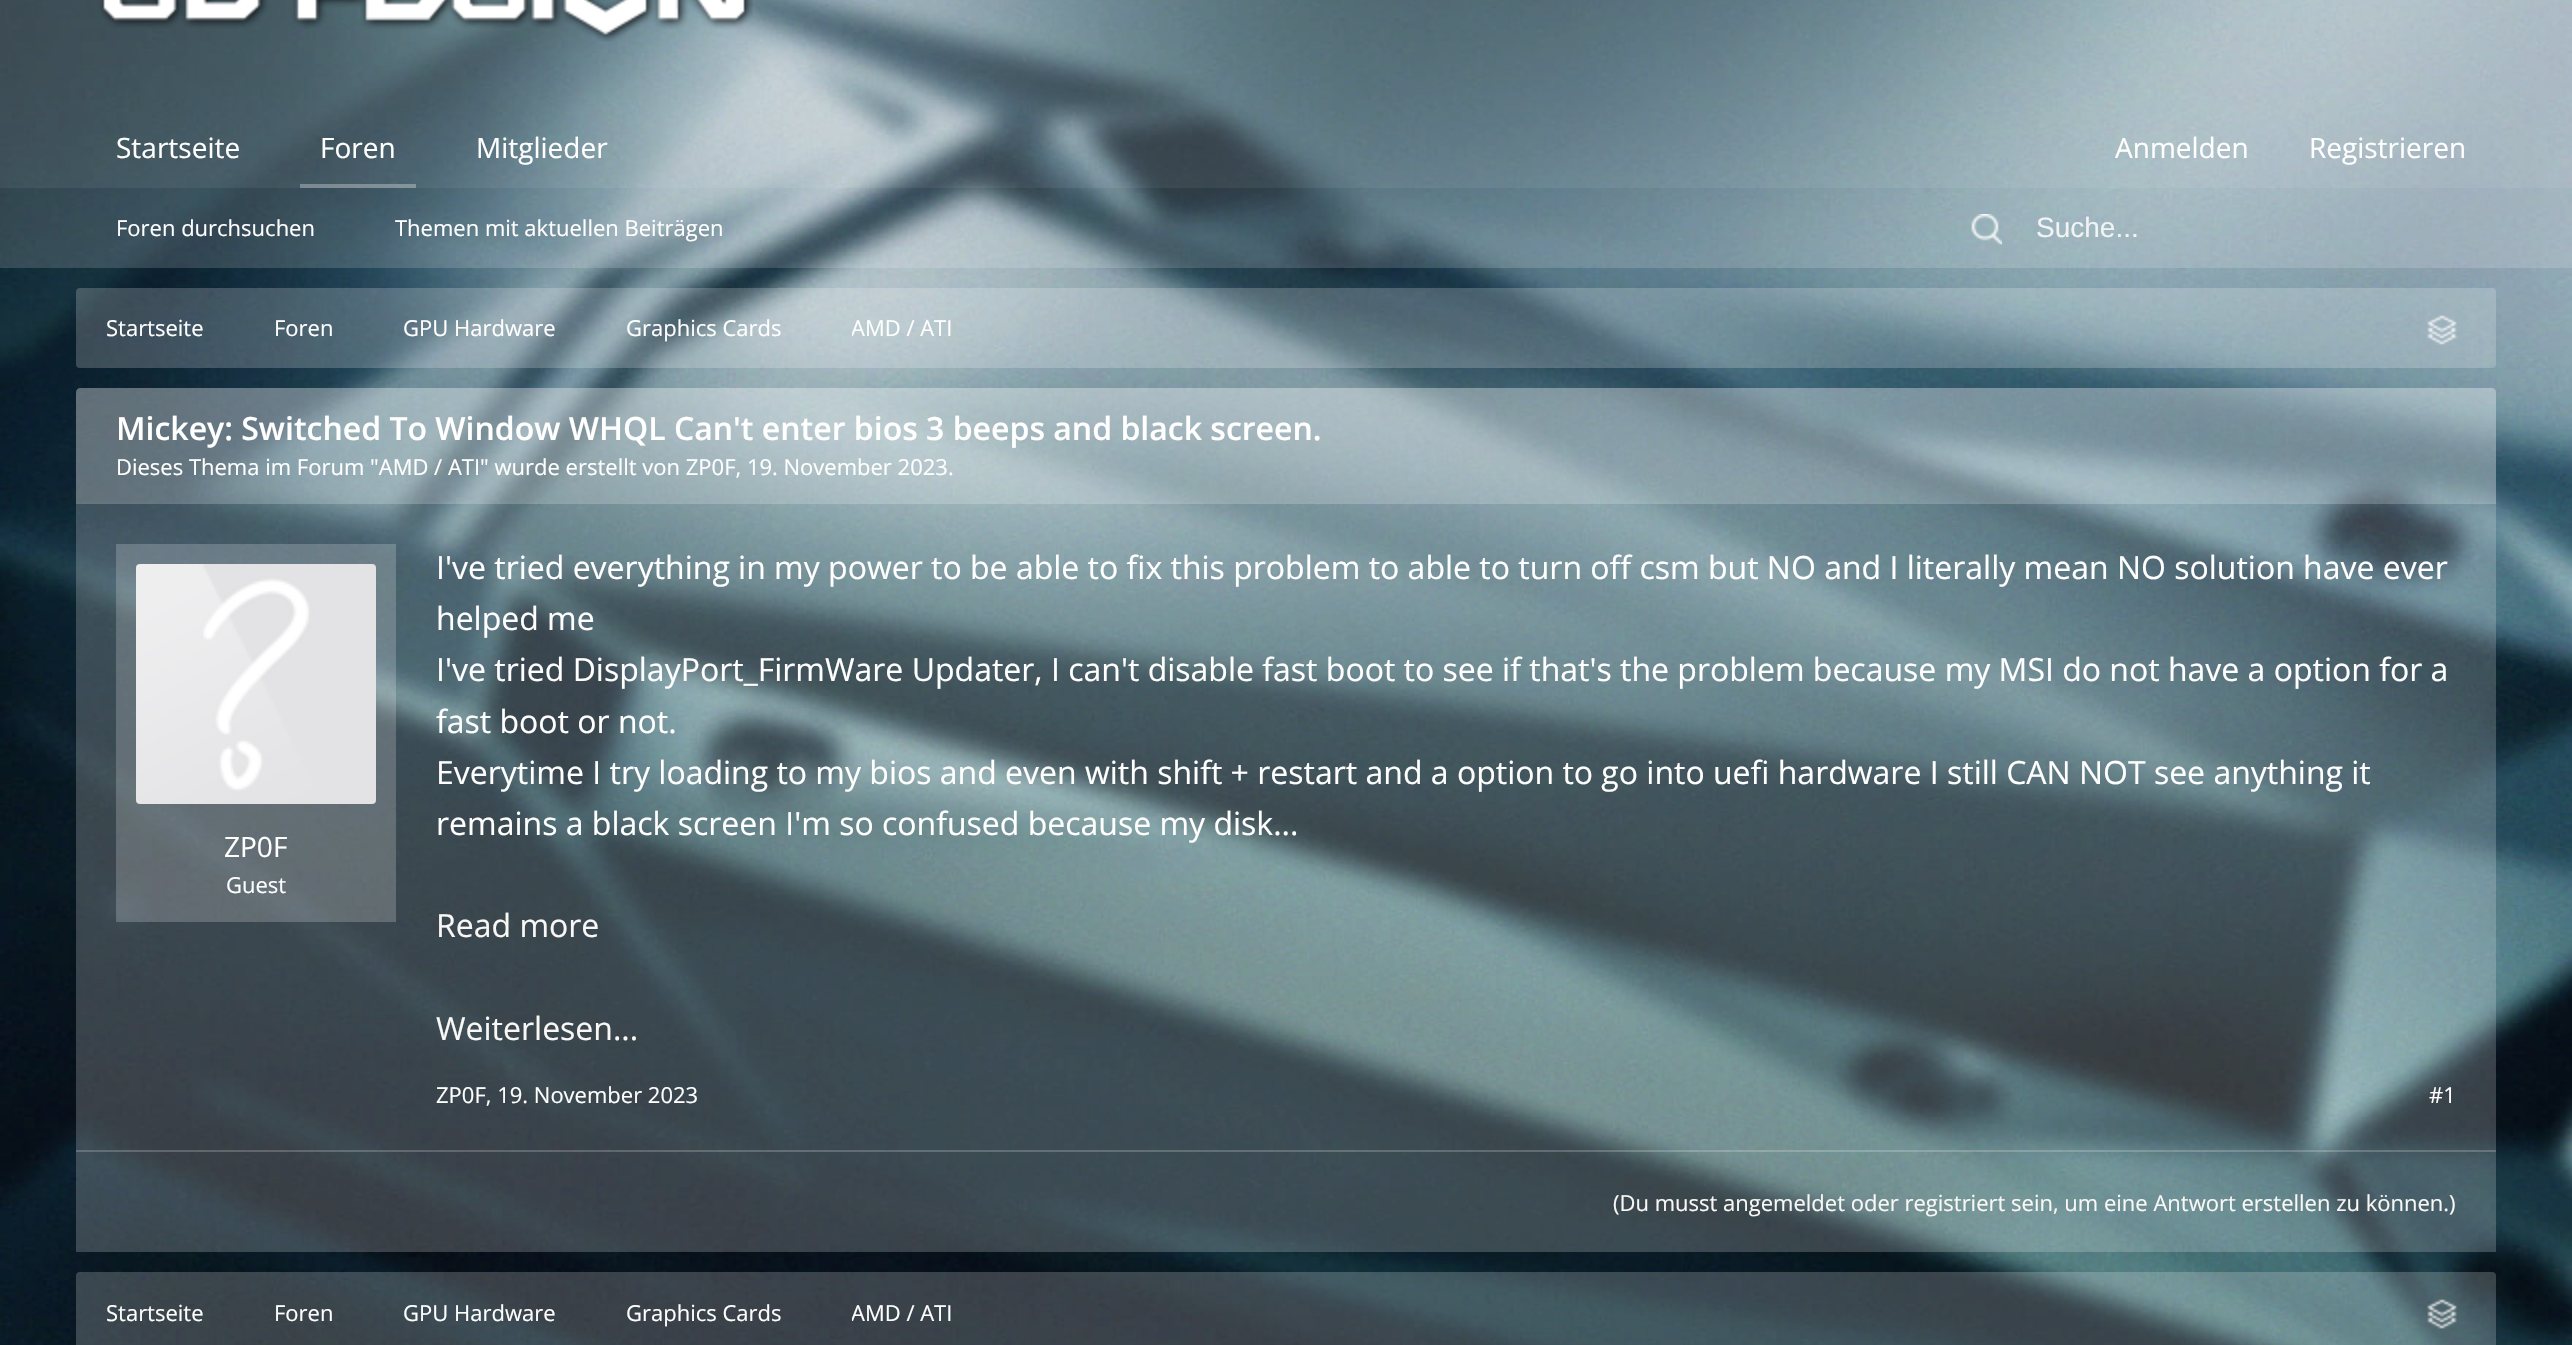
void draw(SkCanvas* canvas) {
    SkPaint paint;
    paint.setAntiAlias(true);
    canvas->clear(0xFFFFFFFF);
    canvas->drawImageRect(SkImages::DeferredFromEncodedData(SkData::MakeFromFileName("img1.png")), SkRect::MakeXYWH(0, 0, 2572, 1345), SkSamplingOptions());
    paint.setColor(0x33FFFFFF);
    canvas->drawRect(SkRect::MakeXYWH(0, 0, 2572, 188), paint);
    canvas->drawImageRect(SkImages::DeferredFromEncodedData(SkData::MakeFromFileName("img2.png")), SkRect::MakeXYWH(99, 0, 654, 42), SkSamplingOptions());
    SkFont font1(fontMgr->matchFamilyStyle("Open Sans", SkFontStyle::Normal()), 28);
    font1.setSubpixel(true);
    paint.setColor(0xFFFFFFFF);
    canvas->drawString("Startseite", 116, 158, font1, paint);
    canvas->drawString("Mitglieder", 476, 158, font1, paint);
    canvas->drawString("Foren", 320, 158, font1, paint);
    paint.setColor(0x4DFFFFFF);
    canvas->drawRect(SkRect::MakeXYWH(300, 184, 116, 4), paint);
    paint.setColor(0x26FFFFFF);
    canvas->drawRect(SkRect::MakeXYWH(0, 188, 2572, 80), paint);
    SkFont font2(fontMgr->matchFamilyStyle("Open Sans", SkFontStyle::Normal()), 22);
    font2.setSubpixel(true);
    paint.setColor(0xFFFFFFFF);
    canvas->drawString("Foren durchsuchen", 116, 236, font2, paint);
    canvas->drawString("Themen mit aktuellen Beiträgen", 395, 236, font2, paint);
    canvas->drawString("Anmelden", 2115, 158, font1, paint);
    canvas->drawString("Registrieren", 2309, 158, font1, paint);
    canvas->drawImageRect(SkImages::DeferredFromEncodedData(SkData::MakeFromFileName("img3.png")), SkRect::MakeXYWH(1971, 214, 31, 31), SkSamplingOptions());
    SkFont font3(fontMgr->matchFamilyStyle("Liberation Sans", SkFontStyle::Normal()), 28);
    font3.setSubpixel(true);
    paint.setColor(0xFFF1F4F5);
    canvas->drawString("Suche...", 2036, 237, font3, paint);
    paint.setColor(0x33FFFFFF);
    canvas->drawRoundRect(SkRect::MakeXYWH(76, 288, 2420, 80), 4, 4, paint);
    paint.setColor(0xFFFFFFFF);
    canvas->drawString("Startseite", 106, 336, font2, paint);
    canvas->drawString("Foren", 274, 336, font2, paint);
    canvas->drawString("GPU Hardware", 403, 336, font2, paint);
    canvas->drawString("Graphics Cards", 626, 336, font2, paint);
    canvas->save();
    canvas->clipRect(SkRect::MakeXYWH(852, 288, 100, 80));
    canvas->drawString("AMD / ATI", 851, 336, font2, paint);
    canvas->restore();
    canvas->drawImageRect(SkImages::DeferredFromEncodedData(SkData::MakeFromFileName("img4.png")), SkRect::MakeXYWH(2427, 315, 30, 30), SkSamplingOptions());
    paint.setColor(0x59FFFFFF);
    canvas->drawPath(SkPathBuilder().moveTo(80, 388).lineTo(2492, 388).cubicTo(2494, 388, 2496, 390, 2496, 392).lineTo(2496, 502).lineTo(76, 502).lineTo(76, 392).cubicTo(76, 390, 78, 388, 80, 388).close().detach(), paint);
    SkFont font4(fontMgr->matchFamilyStyle("Open Sans", SkFontStyle(600, SkFontStyle::kNormal_Width, SkFontStyle::kUpright_Slant)), 32);
    font4.setSubpixel(true);
    paint.setColor(0xFFFFFFFF);
    canvas->drawString("Mickey: Switched To Window WHQL Can't enter bios 3 beeps and black screen.", 116, 440, font4, paint);
    canvas->drawString("Dieses Thema im Forum \"AMD / ATI\" wurde erstellt von ZP0F, 19. November 2023.", 116, 475, font2, paint);
    paint.setColor(0x33FFFFFF);
    canvas->drawRect(SkRect::MakeXYWH(76, 502, 2420, 648), paint);
    canvas->drawRect(SkRect::MakeXYWH(76, 502, 2420, 2), paint);
    canvas->drawRect(SkRect::MakeXYWH(116, 544, 280, 280), paint);
    canvas->drawImageRect(SkImages::DeferredFromEncodedData(SkData::MakeFromFileName("img5.png")), SkRect::MakeXYWH(136, 564, 240, 240), SkSamplingOptions());
    canvas->drawRect(SkRect::MakeXYWH(116, 824, 280, 98), paint);
    paint.setColor(0xFFFFFFFF);
    canvas->drawString("ZP0F", 224, 857, font1, paint);
    canvas->drawString("Guest", 226, 893, font2, paint);
    SkFont font5(fontMgr->matchFamilyStyle("Open Sans", SkFontStyle::Normal()), 32);
    font5.setSubpixel(true);
    canvas->drawString("I've tried everything in my power to be able to fix this problem to able to turn off csm but NO and I literally mean NO solution have ever", 436, 579, font5, paint);
    canvas->drawString("helped me", 436, 630, font5, paint);
    canvas->drawString("I've tried DisplayPort_FirmWare Updater, I can't disable fast boot to see if that's the problem because my MSI do not have a option for a", 436, 681, font5, paint);
    canvas->drawString("fast boot or not.", 436, 733, font5, paint);
    canvas->drawString("Everytime I try loading to my bios and even with shift + restart and a option to go into uefi hardware I still CAN NOT see anything it", 436, 784, font5, paint);
    canvas->drawString("remains a black screen I'm so confused because my disk...", 436, 835, font5, paint);
    paint.setColor(0xFFF9F8F6);
    canvas->drawString("Read more", 436, 937, font5, paint);
    canvas->drawString("Weiterlesen...", 436, 1040, font5, paint);
    paint.setColor(0xFFFFFFFF);
    canvas->drawString("ZP0F, 19. November 2023", 436, 1103, font2, paint);
    canvas->drawString("#1", 2429, 1103, font2, paint);
    paint.setColor(0x33FFFFFF);
    canvas->drawRect(SkRect::MakeXYWH(76, 1150, 2420, 102), paint);
    canvas->drawRect(SkRect::MakeXYWH(76, 1150, 2420, 2), paint);
    paint.setColor(0xFFF9F8F6);
    canvas->drawString("(Du musst angemeldet oder registriert sein, um eine Antwort erstellen zu können.)", 1613, 1211, font2, paint);
    paint.setColor(0x33FFFFFF);
    canvas->drawRoundRect(SkRect::MakeXYWH(76, 1272, 2420, 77), 4, 4, paint);
    paint.setColor(0xFFFFFFFF);
    canvas->drawString("Startseite", 106, 1321, font2, paint);
    canvas->drawString("Foren", 274, 1321, font2, paint);
    canvas->drawString("GPU Hardware", 403, 1321, font2, paint);
    canvas->drawString("Graphics Cards", 626, 1321, font2, paint);
    canvas->save();
    canvas->clipRect(SkRect::MakeXYWH(852, 1272, 100, 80));
    canvas->drawString("AMD / ATI", 851, 1321, font2, paint);
    canvas->restore();
    canvas->drawImageRect(SkImages::DeferredFromEncodedData(SkData::MakeFromFileName("img6.png")), SkRect::MakeXYWH(2427, 1299, 30, 30), SkSamplingOptions());
}
